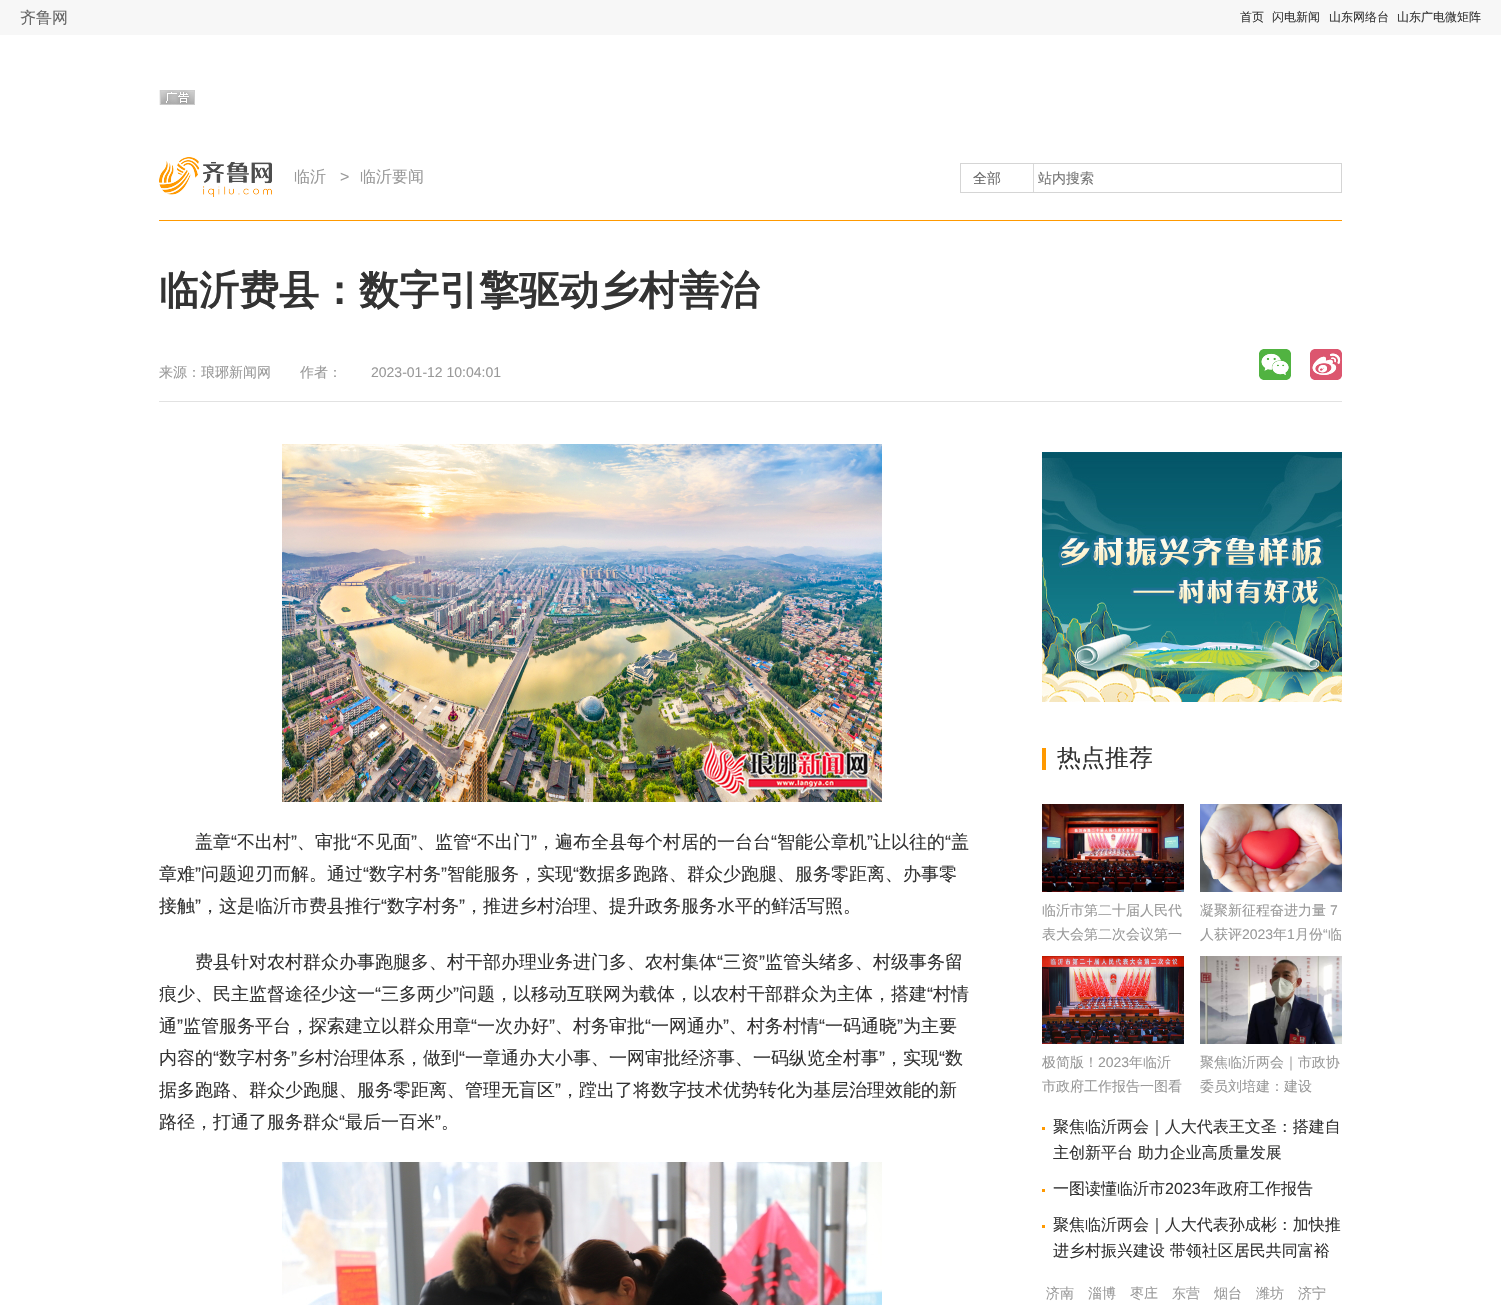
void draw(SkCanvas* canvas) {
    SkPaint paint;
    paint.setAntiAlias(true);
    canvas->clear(0xFFFFFFFF);
    paint.setColor(0xFFF7F7F7);
    canvas->drawRect(SkRect::MakeXYWH(0, 0, 1501, 35), paint);
    SkFont font1(fontMgr->matchFamilyStyle("WenQuanYi Zen Hei", SkFontStyle(500, SkFontStyle::kNormal_Width, SkFontStyle::kUpright_Slant)), 16);
    font1.setSubpixel(true);
    paint.setColor(0xFF666666);
    canvas->drawString("齐鲁网", 20, 23, font1, paint);
    SkFont font2(fontMgr->matchFamilyStyle("WenQuanYi Zen Hei", SkFontStyle(500, SkFontStyle::kNormal_Width, SkFontStyle::kUpright_Slant)), 12);
    font2.setSubpixel(true);
    paint.setColor(0xFF333333);
    canvas->drawString("首页", 1240, 21, font2, paint);
    canvas->drawString("闪电新闻", 1272, 21, font2, paint);
    canvas->drawString("山东网络台", 1329, 21, font2, paint);
    canvas->drawString("山东广电微矩阵", 1397, 21, font2, paint);
    canvas->drawImageRect(SkImages::DeferredFromEncodedData(SkData::MakeFromFileName("img1.png")), SkRect::MakeXYWH(159, 90, 36, 15), SkSamplingOptions());
    paint.setColor(0xFFFF9900);
    canvas->drawRect(SkRect::MakeXYWH(159, 220, 1183, 1), paint);
    canvas->drawImageRect(SkImages::DeferredFromEncodedData(SkData::MakeFromFileName("img2.png")), SkRect::MakeXYWH(159, 157, 113, 40), SkSamplingOptions());
    paint.setColor(0xFF999999);
    canvas->drawString("临沂", 294, 182, font1, paint);
    SkFont font3(fontMgr->matchFamilyStyle("Liberation Sans", SkFontStyle::Normal()), 16);
    font3.setSubpixel(true);
    canvas->drawString(">", 340, 182, font3, paint);
    canvas->drawString("临沂要闻", 360, 182, font1, paint);
    paint.setStyle(SkPaint::kStroke_Style);
    paint.setStrokeWidth(1);
    paint.setColor(0xFFD5D5D5);
    canvas->drawRect(SkRect::MakeXYWH(960.5f, 163.5f, 381, 29), paint);
    paint.setStyle(SkPaint::kFill_Style);
    paint.setColor(0xFFD9D9D9);
    canvas->drawRect(SkRect::MakeXYWH(1033, 164, 1, 28), paint);
    SkFont font4(fontMgr->matchFamilyStyle("WenQuanYi Zen Hei", SkFontStyle(500, SkFontStyle::kNormal_Width, SkFontStyle::kUpright_Slant)), 14);
    font4.setSubpixel(true);
    paint.setColor(0xFF666666);
    canvas->drawString("全部", 973, 183, font4, paint);
    paint.setColor(0xFF757575);
    canvas->drawString("站内搜索", 1038, 183, font4, paint);
    paint.setColor(0xFFE2E2E2);
    canvas->drawRect(SkRect::MakeXYWH(159, 401, 1183, 1), paint);
    SkFont font5(fontMgr->matchFamilyStyle("WenQuanYi Zen Hei", SkFontStyle::Bold()), 40);
    font5.setSubpixel(true);
    paint.setColor(0xFF333333);
    canvas->drawString("临沂费县：数字引擎驱动乡村善治", 159, 304, font5, paint);
    paint.setColor(0xFF999999);
    canvas->drawString("来源：琅琊新闻网", 159, 377, font4, paint);
    canvas->drawString("作者：", 300, 377, font4, paint);
    SkFont font6(fontMgr->matchFamilyStyle("Liberation Sans", SkFontStyle::Normal()), 14);
    font6.setSubpixel(true);
    canvas->drawString("2023-01-12 10:04:01", 371, 377, font6, paint);
    canvas->drawImageRect(SkImages::DeferredFromEncodedData(SkData::MakeFromFileName("img3.png")), SkRect::MakeXYWH(1259, 349, 32, 31), SkSamplingOptions());
    canvas->drawImageRect(SkImages::DeferredFromEncodedData(SkData::MakeFromFileName("img4.png")), SkRect::MakeXYWH(1310, 349, 32, 31), SkSamplingOptions());
    canvas->drawImageRect(SkImages::DeferredFromEncodedData(SkData::MakeFromFileName("img5.png")), SkRect::MakeXYWH(282, 444, 600, 358), SkSamplingOptions());
    SkFont font7(fontMgr->matchFamilyStyle("WenQuanYi Zen Hei", SkFontStyle(500, SkFontStyle::kNormal_Width, SkFontStyle::kUpright_Slant)), 18);
    font7.setSubpixel(true);
    paint.setColor(0xFF333333);
    canvas->drawString("盖章", 195, 848, font7, paint);
    SkFont font8(fontMgr->matchFamilyStyle("Liberation Sans", SkFontStyle::Normal()), 18);
    font8.setSubpixel(true);
    canvas->drawString("“", 231, 848, font8, paint);
    canvas->drawString("不出村", 237, 848, font7, paint);
    canvas->drawString("”", 291, 848, font8, paint);
    canvas->drawString("、审批", 297, 848, font7, paint);
    canvas->drawString("“", 351, 848, font8, paint);
    canvas->drawString("不见面", 357, 848, font7, paint);
    canvas->drawString("”", 411, 848, font8, paint);
    canvas->drawString("、监管", 417, 848, font7, paint);
    canvas->drawString("“", 471, 848, font8, paint);
    canvas->drawString("不出门", 477, 848, font7, paint);
    canvas->drawString("”", 531, 848, font8, paint);
    canvas->drawString("，遍布全县每个村居的一台台", 537, 848, font7, paint);
    canvas->drawString("“", 771, 848, font8, paint);
    canvas->drawString("智能公章机", 777, 848, font7, paint);
    canvas->drawString("”", 867, 848, font8, paint);
    canvas->drawString("让以往的", 873, 848, font7, paint);
    canvas->drawString("“", 945, 848, font8, paint);
    canvas->drawString("盖", 951, 848, font7, paint);
    canvas->drawString("章难", 159, 880, font7, paint);
    canvas->drawString("”", 195, 880, font8, paint);
    canvas->drawString("问题迎刃而解。通过", 201, 880, font7, paint);
    canvas->drawString("“", 363, 880, font8, paint);
    canvas->drawString("数字村务", 369, 880, font7, paint);
    canvas->drawString("”", 441, 880, font8, paint);
    canvas->drawString("智能服务，实现", 447, 880, font7, paint);
    canvas->drawString("“", 573, 880, font8, paint);
    canvas->drawString("数据多跑路、群众少跑腿、服务零距离、办事零", 579, 880, font7, paint);
    canvas->drawString("接触", 159, 912, font7, paint);
    canvas->drawString("”", 195, 912, font8, paint);
    canvas->drawString("，这是临沂市费县推行", 201, 912, font7, paint);
    canvas->drawString("“", 381, 912, font8, paint);
    canvas->drawString("数字村务", 387, 912, font7, paint);
    canvas->drawString("”", 459, 912, font8, paint);
    canvas->drawString("，推进乡村治理、提升政务服务水平的鲜活写照。", 465, 912, font7, paint);
    canvas->drawString("费县针对农村群众办事跑腿多、村干部办理业务进门多、农村集体", 195, 968, font7, paint);
    canvas->drawString("“", 717, 968, font8, paint);
    canvas->drawString("三资", 723, 968, font7, paint);
    canvas->drawString("”", 759, 968, font8, paint);
    canvas->drawString("监管头绪多、村级事务留", 765, 968, font7, paint);
    canvas->drawString("痕少、民主监督途径少这一", 159, 1000, font7, paint);
    canvas->drawString("“", 375, 1000, font8, paint);
    canvas->drawString("三多两少", 381, 1000, font7, paint);
    canvas->drawString("”", 453, 1000, font8, paint);
    canvas->drawString("问题，以移动互联网为载体，以农村干部群众为主体，搭建", 459, 1000, font7, paint);
    canvas->drawString("“", 927, 1000, font8, paint);
    canvas->drawString("村情", 933, 1000, font7, paint);
    canvas->drawString("通", 159, 1032, font7, paint);
    canvas->drawString("”", 177, 1032, font8, paint);
    canvas->drawString("监管服务平台，探索建立以群众用章", 183, 1032, font7, paint);
    canvas->drawString("“", 471, 1032, font8, paint);
    canvas->drawString("一次办好", 477, 1032, font7, paint);
    canvas->drawString("”", 549, 1032, font8, paint);
    canvas->drawString("、村务审批", 555, 1032, font7, paint);
    canvas->drawString("“", 645, 1032, font8, paint);
    canvas->drawString("一网通办", 651, 1032, font7, paint);
    canvas->drawString("”", 723, 1032, font8, paint);
    canvas->drawString("、村务村情", 729, 1032, font7, paint);
    canvas->drawString("“", 819, 1032, font8, paint);
    canvas->drawString("一码通晓", 825, 1032, font7, paint);
    canvas->drawString("”", 897, 1032, font8, paint);
    canvas->drawString("为主要", 903, 1032, font7, paint);
    canvas->drawString("内容的", 159, 1064, font7, paint);
    canvas->drawString("“", 213, 1064, font8, paint);
    canvas->drawString("数字村务", 219, 1064, font7, paint);
    canvas->drawString("”", 291, 1064, font8, paint);
    canvas->drawString("乡村治理体系，做到", 297, 1064, font7, paint);
    canvas->drawString("“", 459, 1064, font8, paint);
    canvas->drawString("一章通办大小事、一网审批经济事、一码纵览全村事", 465, 1064, font7, paint);
    canvas->drawString("”", 879, 1064, font8, paint);
    canvas->drawString("，实现", 885, 1064, font7, paint);
    canvas->drawString("“", 939, 1064, font8, paint);
    canvas->drawString("数", 945, 1064, font7, paint);
    canvas->drawString("据多跑路、群众少跑腿、服务零距离、管理无盲区", 159, 1096, font7, paint);
    canvas->drawString("”", 555, 1096, font8, paint);
    canvas->drawString("，蹚出了将数字技术优势转化为基层治理效能的新", 561, 1096, font7, paint);
    canvas->drawString("路径，打通了服务群众", 159, 1128, font7, paint);
    canvas->drawString("“", 339, 1128, font8, paint);
    canvas->drawString("最后一百米", 345, 1128, font7, paint);
    canvas->drawString("”", 435, 1128, font8, paint);
    canvas->drawString("。", 441, 1128, font7, paint);
    canvas->drawImageRect(SkImages::DeferredFromEncodedData(SkData::MakeFromFileName("img6.png")), SkRect::MakeXYWH(282, 1162, 600, 143), SkSamplingOptions());
    canvas->drawImageRect(SkImages::DeferredFromEncodedData(SkData::MakeFromFileName("img7.png")), SkRect::MakeXYWH(1042, 452, 300, 250), SkSamplingOptions());
    paint.setColor(0xFFFF9900);
    canvas->drawRect(SkRect::MakeXYWH(1042, 748, 4, 22), paint);
    SkFont font9(fontMgr->matchFamilyStyle("WenQuanYi Zen Hei", SkFontStyle(500, SkFontStyle::kNormal_Width, SkFontStyle::kUpright_Slant)), 24);
    font9.setSubpixel(true);
    paint.setColor(0xFF333333);
    canvas->drawString("热点推荐", 1057, 766, font9, paint);
    canvas->drawImageRect(SkImages::DeferredFromEncodedData(SkData::MakeFromFileName("img8.png")), SkRect::MakeXYWH(1042, 804, 142, 88), SkSamplingOptions());
    paint.setColor(0xFF999999);
    canvas->drawString("临沂市第二十届人民代", 1042, 915, font4, paint);
    canvas->drawString("表大会第二次会议第一", 1042, 939, font4, paint);
    canvas->drawImageRect(SkImages::DeferredFromEncodedData(SkData::MakeFromFileName("img9.png")), SkRect::MakeXYWH(1200, 804, 142, 88), SkSamplingOptions());
    canvas->drawString("凝聚新征程奋进力量", 1200, 915, font4, paint);
    canvas->drawString("7", 1330, 915, font6, paint);
    canvas->drawString("人获评", 1200, 939, font4, paint);
    canvas->drawString("2023", 1242, 939, font6, paint);
    canvas->drawString("年", 1273, 939, font4, paint);
    canvas->drawString("1", 1287, 939, font6, paint);
    canvas->drawString("月份", 1295, 939, font4, paint);
    canvas->drawString("“", 1323, 939, font6, paint);
    canvas->drawString("临", 1328, 939, font4, paint);
    canvas->drawImageRect(SkImages::DeferredFromEncodedData(SkData::MakeFromFileName("img10.png")), SkRect::MakeXYWH(1042, 956, 142, 88), SkSamplingOptions());
    canvas->drawString("极简版！", 1042, 1067, font4, paint);
    canvas->drawString("2023", 1098, 1067, font6, paint);
    canvas->drawString("年临沂", 1129, 1067, font4, paint);
    canvas->drawString("市政府工作报告一图看", 1042, 1091, font4, paint);
    canvas->drawImageRect(SkImages::DeferredFromEncodedData(SkData::MakeFromFileName("img11.png")), SkRect::MakeXYWH(1200, 956, 142, 88), SkSamplingOptions());
    canvas->drawString("聚焦临沂两会｜市政协", 1200, 1067, font4, paint);
    canvas->drawString("委员刘培建：建设", 1200, 1091, font4, paint);
    paint.setColor(0xFFFF9900);
    canvas->drawRect(SkRect::MakeXYWH(1042, 1127, 3, 3), paint);
    paint.setColor(0xFF333333);
    canvas->drawString("聚焦临沂两会｜人大代表王文圣：搭建自", 1053, 1132, font1, paint);
    canvas->drawString("主创新平台 助力企业高质量发展", 1053, 1158, font1, paint);
    paint.setColor(0xFFFF9900);
    canvas->drawRect(SkRect::MakeXYWH(1042, 1189, 3, 3), paint);
    paint.setColor(0xFF333333);
    canvas->drawString("一图读懂临沂市", 1053, 1194, font1, paint);
    canvas->drawString("2023", 1165, 1194, font3, paint);
    canvas->drawString("年政府工作报告", 1201, 1194, font1, paint);
    paint.setColor(0xFFFF9900);
    canvas->drawRect(SkRect::MakeXYWH(1042, 1225, 3, 3), paint);
    paint.setColor(0xFF333333);
    canvas->drawString("聚焦临沂两会｜人大代表孙成彬：加快推", 1053, 1230, font1, paint);
    canvas->drawString("进乡村振兴建设 带领社区居民共同富裕", 1053, 1256, font1, paint);
    paint.setColor(0xFF999999);
    canvas->drawString("济南", 1046, 1298, font4, paint);
    canvas->drawString("淄博", 1088, 1298, font4, paint);
    canvas->drawString("枣庄", 1130, 1298, font4, paint);
    canvas->drawString("东营", 1172, 1298, font4, paint);
    canvas->drawString("烟台", 1214, 1298, font4, paint);
    canvas->drawString("潍坊", 1256, 1298, font4, paint);
    canvas->drawString("济宁", 1298, 1298, font4, paint);
}
